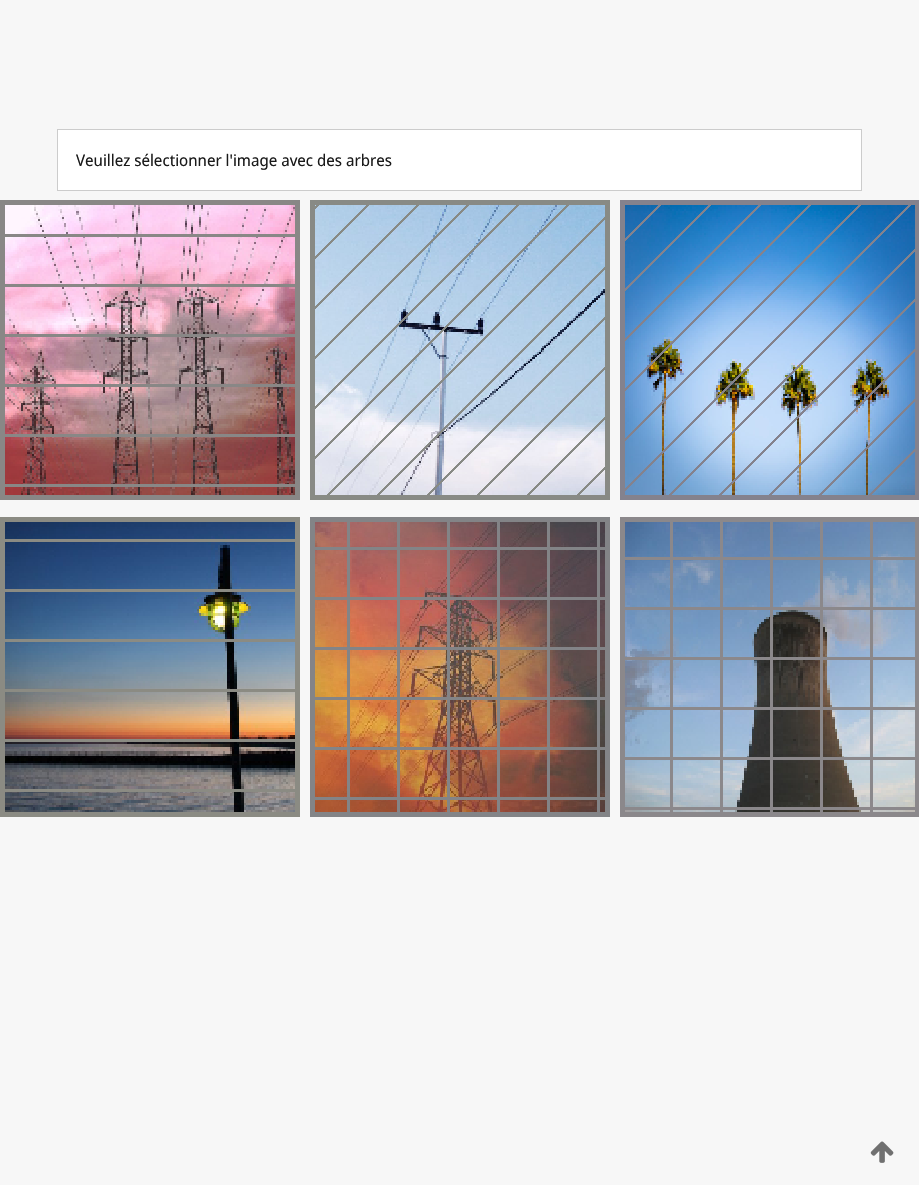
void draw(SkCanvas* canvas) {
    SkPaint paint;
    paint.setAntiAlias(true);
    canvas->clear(0xFFF7F7F7);
    paint.setColor(0xFFFFFFFF);
    canvas->drawRect(SkRect::MakeXYWH(57.5f, 129.5f, 804, 61), paint);
    paint.setStyle(SkPaint::kStroke_Style);
    paint.setStrokeWidth(1);
    paint.setColor(0xFFCCCCCC);
    canvas->drawRect(SkRect::MakeXYWH(57.5f, 129.5f, 804, 61), paint);
    SkFont font1(fontMgr->matchFamilyStyle("Noto Sans Display", SkFontStyle::Normal()), 16);
    font1.setSubpixel(true);
    paint.setStyle(SkPaint::kFill_Style);
    paint.setColor(0xFF1A1A1A);
    canvas->drawString("Veuillez sélectionner l'image avec des arbres", 76, 166, font1, paint);
    canvas->drawImageRect(SkImages::DeferredFromEncodedData(SkData::MakeFromFileName("img1.png")), SkRect::MakeXYWH(0, 200, 300, 300), SkSamplingOptions());
    canvas->drawImageRect(SkImages::DeferredFromEncodedData(SkData::MakeFromFileName("img2.png")), SkRect::MakeXYWH(310, 200, 300, 300), SkSamplingOptions());
    canvas->drawImageRect(SkImages::DeferredFromEncodedData(SkData::MakeFromFileName("img3.png")), SkRect::MakeXYWH(620, 200, 299, 300), SkSamplingOptions());
    canvas->drawImageRect(SkImages::DeferredFromEncodedData(SkData::MakeFromFileName("img4.png")), SkRect::MakeXYWH(0, 517, 300, 300), SkSamplingOptions());
    canvas->drawImageRect(SkImages::DeferredFromEncodedData(SkData::MakeFromFileName("img5.png")), SkRect::MakeXYWH(310, 517, 300, 300), SkSamplingOptions());
    canvas->drawImageRect(SkImages::DeferredFromEncodedData(SkData::MakeFromFileName("img6.png")), SkRect::MakeXYWH(620, 517, 299, 300), SkSamplingOptions());
    canvas->drawImageRect(SkImages::DeferredFromEncodedData(SkData::MakeFromFileName("img7.png")), SkRect::MakeXYWH(870, 1141, 24, 22), SkSamplingOptions());
}
